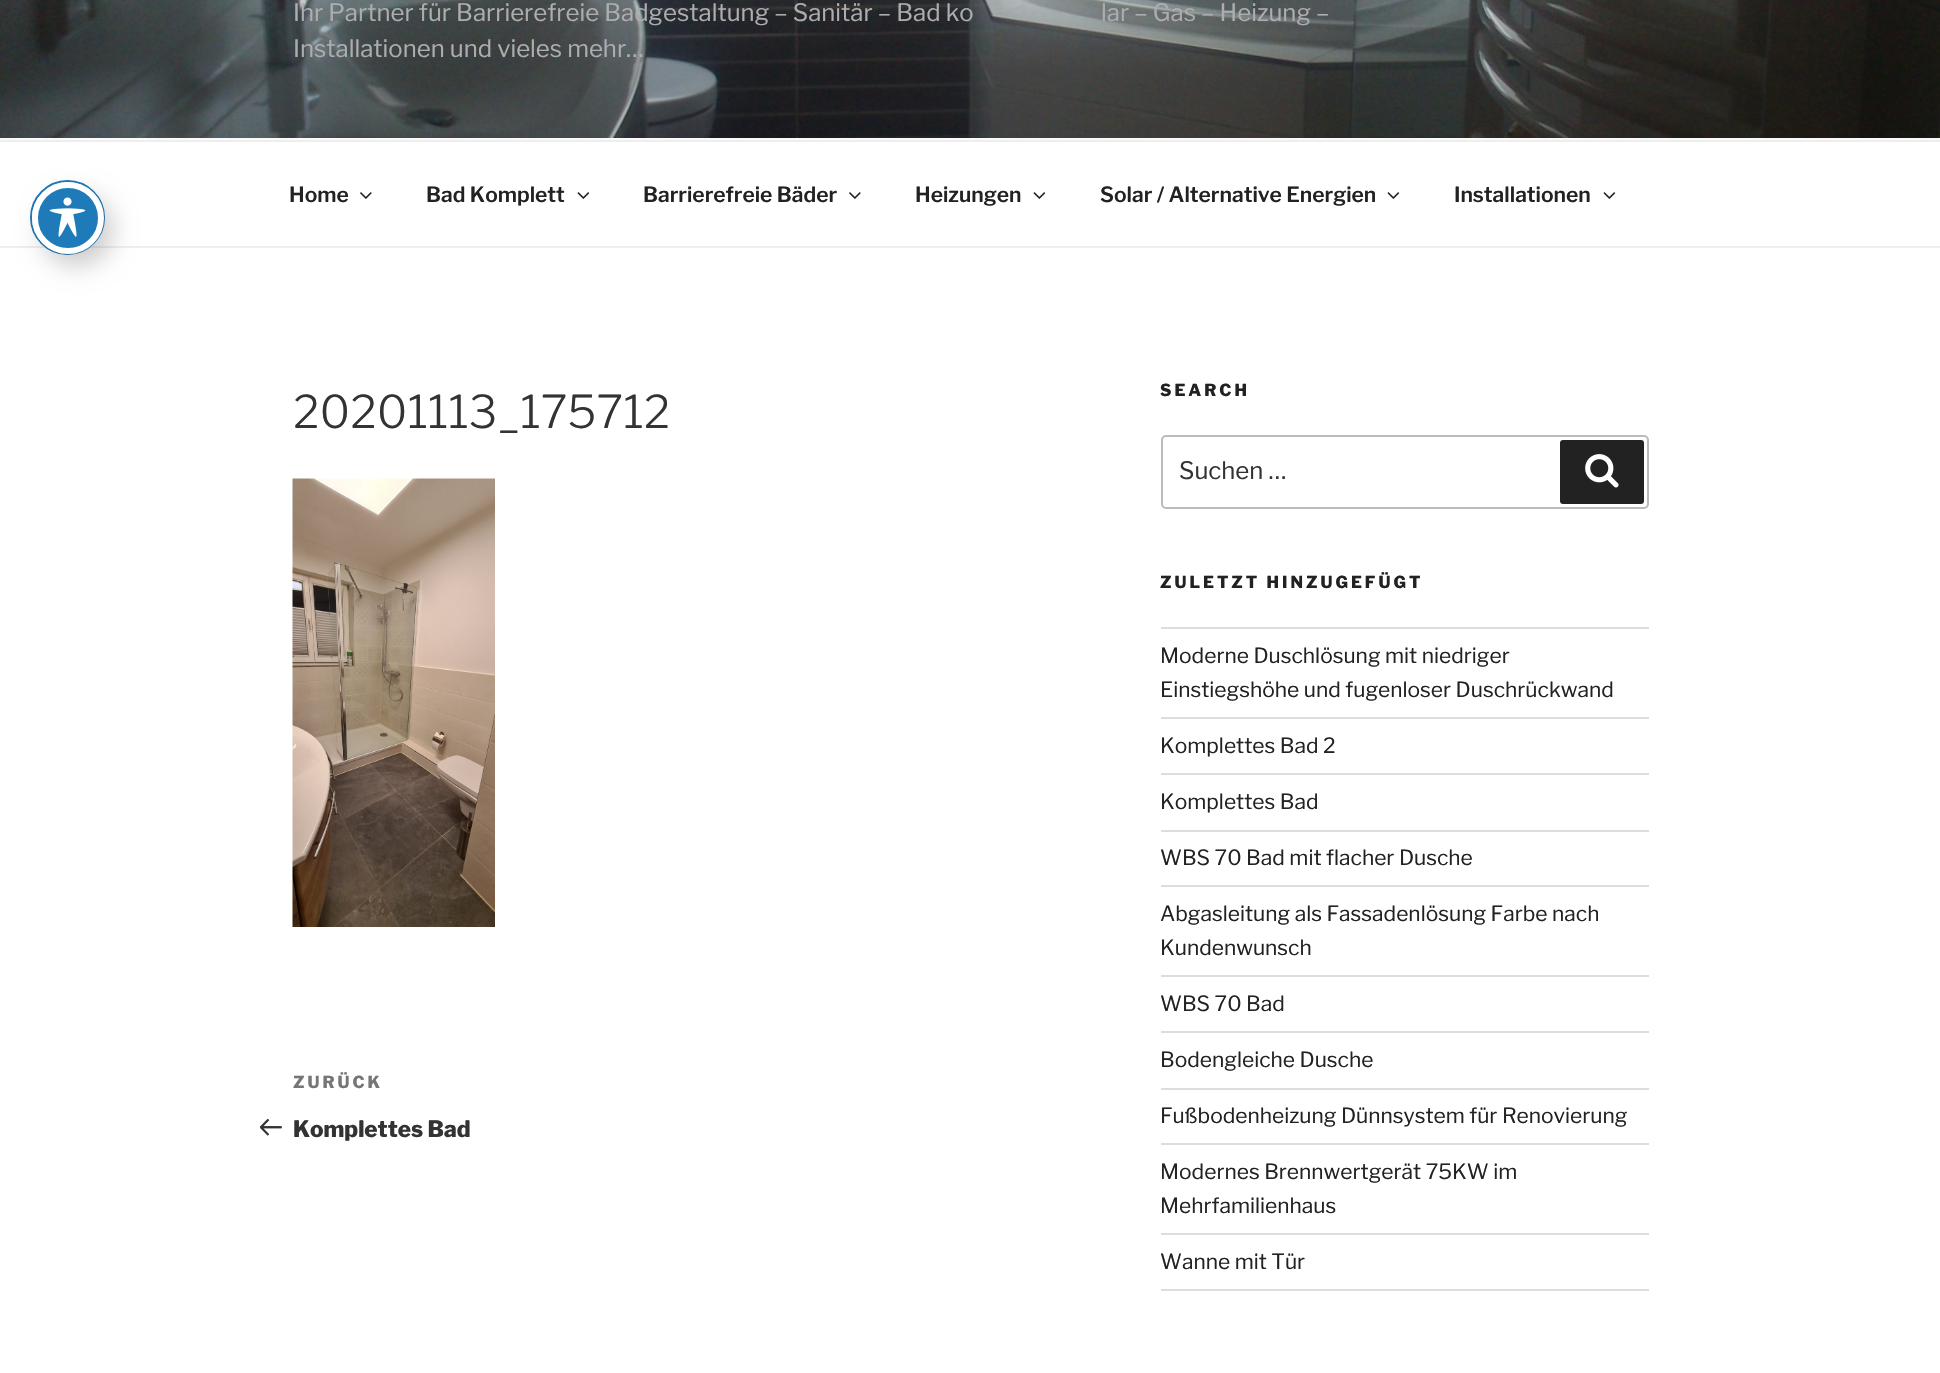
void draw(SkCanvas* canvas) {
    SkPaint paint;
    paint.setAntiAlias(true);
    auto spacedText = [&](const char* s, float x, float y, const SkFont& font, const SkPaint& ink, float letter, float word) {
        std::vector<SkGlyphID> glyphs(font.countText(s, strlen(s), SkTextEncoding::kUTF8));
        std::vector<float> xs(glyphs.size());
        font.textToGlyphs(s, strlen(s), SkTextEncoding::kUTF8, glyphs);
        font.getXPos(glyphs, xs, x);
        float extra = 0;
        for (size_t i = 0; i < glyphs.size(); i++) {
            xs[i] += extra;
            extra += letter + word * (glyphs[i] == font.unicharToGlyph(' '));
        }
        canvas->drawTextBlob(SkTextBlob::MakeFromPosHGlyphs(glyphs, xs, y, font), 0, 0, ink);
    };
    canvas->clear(0xFFFFFFFF);
    paint.setColor(0xFFEEEEEE);
    canvas->drawRect(SkRect::MakeXYWH(0, 246, 1940, 2), paint);
    paint.setStyle(SkPaint::kStroke_Style);
    paint.setStrokeWidth(2);
    paint.setColor(0xFF1E7AB9);
    canvas->drawCircle(67.5f, 217.5f, 36.5f, paint);
    paint.setStyle(SkPaint::kFill_Style);
    paint.setColor(0x33000000);
    paint.setMaskFilter(SkMaskFilter::MakeBlur(kNormal_SkBlurStyle, 12));
    canvas->drawRoundRect(SkRect::MakeXYWH(41, 194, 72, 72), 36, 36, paint);
    paint.setMaskFilter(nullptr);
    paint.setColor(0xFF1E7AB9);
    canvas->drawCircle(68, 218, 33, paint);
    paint.setStyle(SkPaint::kStroke_Style);
    paint.setStrokeWidth(6);
    paint.setColor(0xFFFFFFFF);
    canvas->drawCircle(68, 218, 33, paint);
    canvas->drawImageRect(SkImages::DeferredFromEncodedData(SkData::MakeFromFileName("img1.png")), SkRect::MakeXYWH(49, 197, 37, 40), SkSamplingOptions());
    paint.setStyle(SkPaint::kFill_Style);
    paint.setColor(0xFFFAFAFA);
    canvas->drawRect(SkRect::MakeXYWH(0, 138, 1940, 2), paint);
    canvas->drawImageRect(SkImages::DeferredFromEncodedData(SkData::MakeFromFileName("img2.png")), SkRect::MakeXYWH(0, 0, 1940, 138), SkSamplingOptions());
    SkFont font1(fontMgr->matchFamilyStyle("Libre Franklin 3", SkFontStyle(100, SkFontStyle::kNormal_Width, SkFontStyle::kUpright_Slant)), 24);
    font1.setSubpixel(true);
    paint.setColor(0xFFACADAE);
    canvas->drawString("Ihr Partner für Barrierefreie Badgestaltung – Sanitär – Bad ko", 293, 21, font1, paint);
    canvas->drawString("lar – Gas – Heizung –", 1101, 21, font1, paint);
    canvas->drawString("Installationen und vieles mehr…", 293, 57, font1, paint);
    paint.setColor(0xFFEEEEEE);
    canvas->drawRect(SkRect::MakeXYWH(0, 140, 1940, 2), paint);
    SkFont font2(fontMgr->matchFamilyStyle("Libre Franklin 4", SkFontStyle(100, SkFontStyle::kNormal_Width, SkFontStyle::kUpright_Slant)), 21);
    font2.setSubpixel(true);
    paint.setColor(0xFF222222);
    canvas->drawString("Home", 289, 202, font2, paint);
    canvas->drawImageRect(SkImages::DeferredFromEncodedData(SkData::MakeFromFileName("img3.png")), SkRect::MakeXYWH(360, 192, 12, 7), SkSamplingOptions());
    canvas->drawString("Bad Komplett", 426, 202, font2, paint);
    canvas->drawImageRect(SkImages::DeferredFromEncodedData(SkData::MakeFromFileName("img4.png")), SkRect::MakeXYWH(577, 192, 13, 7), SkSamplingOptions());
    canvas->drawString("Barrierefreie Bäder", 643, 202, font2, paint);
    canvas->drawImageRect(SkImages::DeferredFromEncodedData(SkData::MakeFromFileName("img3.png")), SkRect::MakeXYWH(849, 192, 12, 7), SkSamplingOptions());
    canvas->drawString("Heizungen", 915, 202, font2, paint);
    canvas->drawImageRect(SkImages::DeferredFromEncodedData(SkData::MakeFromFileName("img4.png")), SkRect::MakeXYWH(1033, 192, 13, 7), SkSamplingOptions());
    canvas->drawString("Solar / Alternative Energien", 1100, 202, font2, paint);
    canvas->drawImageRect(SkImages::DeferredFromEncodedData(SkData::MakeFromFileName("img4.png")), SkRect::MakeXYWH(1387, 192, 13, 7), SkSamplingOptions());
    canvas->drawString("Installationen", 1454, 202, font2, paint);
    canvas->drawImageRect(SkImages::DeferredFromEncodedData(SkData::MakeFromFileName("img4.png")), SkRect::MakeXYWH(1603, 192, 13, 7), SkSamplingOptions());
    SkFont font3(fontMgr->matchFamilyStyle("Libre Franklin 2", SkFontStyle(100, SkFontStyle::kNormal_Width, SkFontStyle::kUpright_Slant)), 45);
    font3.setSubpixel(true);
    paint.setColor(0xFF333333);
    canvas->drawString("20201113_175712", 293, 428, font3, paint);
    canvas->drawImageRect(SkImages::DeferredFromEncodedData(SkData::MakeFromFileName("img5.png")), SkRect::MakeXYWH(292, 478, 203, 449), SkSamplingOptions());
    SkFont font4(fontMgr->matchFamilyStyle("Libre Franklin", SkFontStyle(100, SkFontStyle::kNormal_Width, SkFontStyle::kUpright_Slant)), 16.5f);
    font4.setSubpixel(true);
    paint.setColor(0xFF767676);
    spacedText("ZURÜCK", 293, 1088, font4, paint, 3, 0);
    canvas->drawImageRect(SkImages::DeferredFromEncodedData(SkData::MakeFromFileName("img6.png")), SkRect::MakeXYWH(260, 1118, 22, 18), SkSamplingOptions());
    SkFont font5(fontMgr->matchFamilyStyle("Libre Franklin", SkFontStyle(100, SkFontStyle::kNormal_Width, SkFontStyle::kUpright_Slant)), 22.5f);
    font5.setSubpixel(true);
    paint.setColor(0xFF333333);
    canvas->drawString("Komplettes Bad", 293, 1137, font5, paint);
    paint.setColor(0xFF222222);
    spacedText("SEARCH", 1160, 396, font4, paint, 3, 0);
    paint.setStyle(SkPaint::kStroke_Style);
    paint.setStrokeWidth(2);
    paint.setColor(0xFFBBBBBB);
    canvas->drawRoundRect(SkRect::MakeXYWH(1162, 436, 486, 72), 4, 4, paint);
    paint.setStyle(SkPaint::kFill_Style);
    paint.setColor(0xFF333333);
    canvas->drawString("Suchen …", 1179, 479, font1, paint);
    paint.setColor(0xFF222222);
    canvas->drawRoundRect(SkRect::MakeXYWH(1560, 440, 84, 64), 3, 3, paint);
    canvas->drawImageRect(SkImages::DeferredFromEncodedData(SkData::MakeFromFileName("img7.png")), SkRect::MakeXYWH(1585, 454, 34, 34), SkSamplingOptions());
    spacedText("ZULETZT HINZUGEFÜGT", 1160, 588, font4, paint, 3, 0);
    paint.setColor(0xFFDDDDDD);
    canvas->drawRect(SkRect::MakeXYWH(1161, 627, 488, 2), paint);
    canvas->drawRect(SkRect::MakeXYWH(1161, 717, 488, 2), paint);
    SkFont font6(fontMgr->matchFamilyStyle("Libre Franklin 3", SkFontStyle(100, SkFontStyle::kNormal_Width, SkFontStyle::kUpright_Slant)), 21);
    font6.setSubpixel(true);
    paint.setColor(0xFF222222);
    canvas->drawString("Moderne Duschlösung mit niedriger", 1160, 663, font6, paint);
    canvas->drawString("Einstiegshöhe und fugenloser Duschrückwand", 1160, 697, font6, paint);
    paint.setColor(0xFFDDDDDD);
    canvas->drawRect(SkRect::MakeXYWH(1161, 773, 488, 2), paint);
    paint.setColor(0xFF222222);
    canvas->drawString("Komplettes Bad 2", 1160, 753, font6, paint);
    paint.setColor(0xFFDDDDDD);
    canvas->drawRect(SkRect::MakeXYWH(1161, 830, 488, 2), paint);
    paint.setColor(0xFF222222);
    canvas->drawString("Komplettes Bad", 1160, 809, font6, paint);
    paint.setColor(0xFFDDDDDD);
    canvas->drawRect(SkRect::MakeXYWH(1161, 885, 488, 2), paint);
    paint.setColor(0xFF222222);
    canvas->drawString("WBS 70 Bad mit flacher Dusche", 1160, 865, font6, paint);
    paint.setColor(0xFFDDDDDD);
    canvas->drawRect(SkRect::MakeXYWH(1161, 975, 488, 2), paint);
    paint.setColor(0xFF222222);
    canvas->drawString("Abgasleitung als Fassadenlösung Farbe nach", 1160, 921, font6, paint);
    canvas->drawString("Kundenwunsch", 1160, 955, font6, paint);
    paint.setColor(0xFFDDDDDD);
    canvas->drawRect(SkRect::MakeXYWH(1161, 1031, 488, 2), paint);
    paint.setColor(0xFF222222);
    canvas->drawString("WBS 70 Bad", 1160, 1011, font6, paint);
    paint.setColor(0xFFDDDDDD);
    canvas->drawRect(SkRect::MakeXYWH(1161, 1088, 488, 2), paint);
    paint.setColor(0xFF222222);
    canvas->drawString("Bodengleiche Dusche", 1160, 1067, font6, paint);
    paint.setColor(0xFFDDDDDD);
    canvas->drawRect(SkRect::MakeXYWH(1161, 1143, 488, 2), paint);
    paint.setColor(0xFF222222);
    canvas->drawString("Fußbodenheizung Dünnsystem für Renovierung", 1160, 1123, font6, paint);
    paint.setColor(0xFFDDDDDD);
    canvas->drawRect(SkRect::MakeXYWH(1161, 1233, 488, 2), paint);
    paint.setColor(0xFF222222);
    canvas->drawString("Modernes Brennwertgerät 75KW im", 1160, 1179, font6, paint);
    canvas->drawString("Mehrfamilienhaus", 1160, 1213, font6, paint);
    paint.setColor(0xFFDDDDDD);
    canvas->drawRect(SkRect::MakeXYWH(1161, 1289, 488, 2), paint);
    paint.setColor(0xFF222222);
    canvas->drawString("Wanne mit Tür", 1160, 1269, font6, paint);
}
